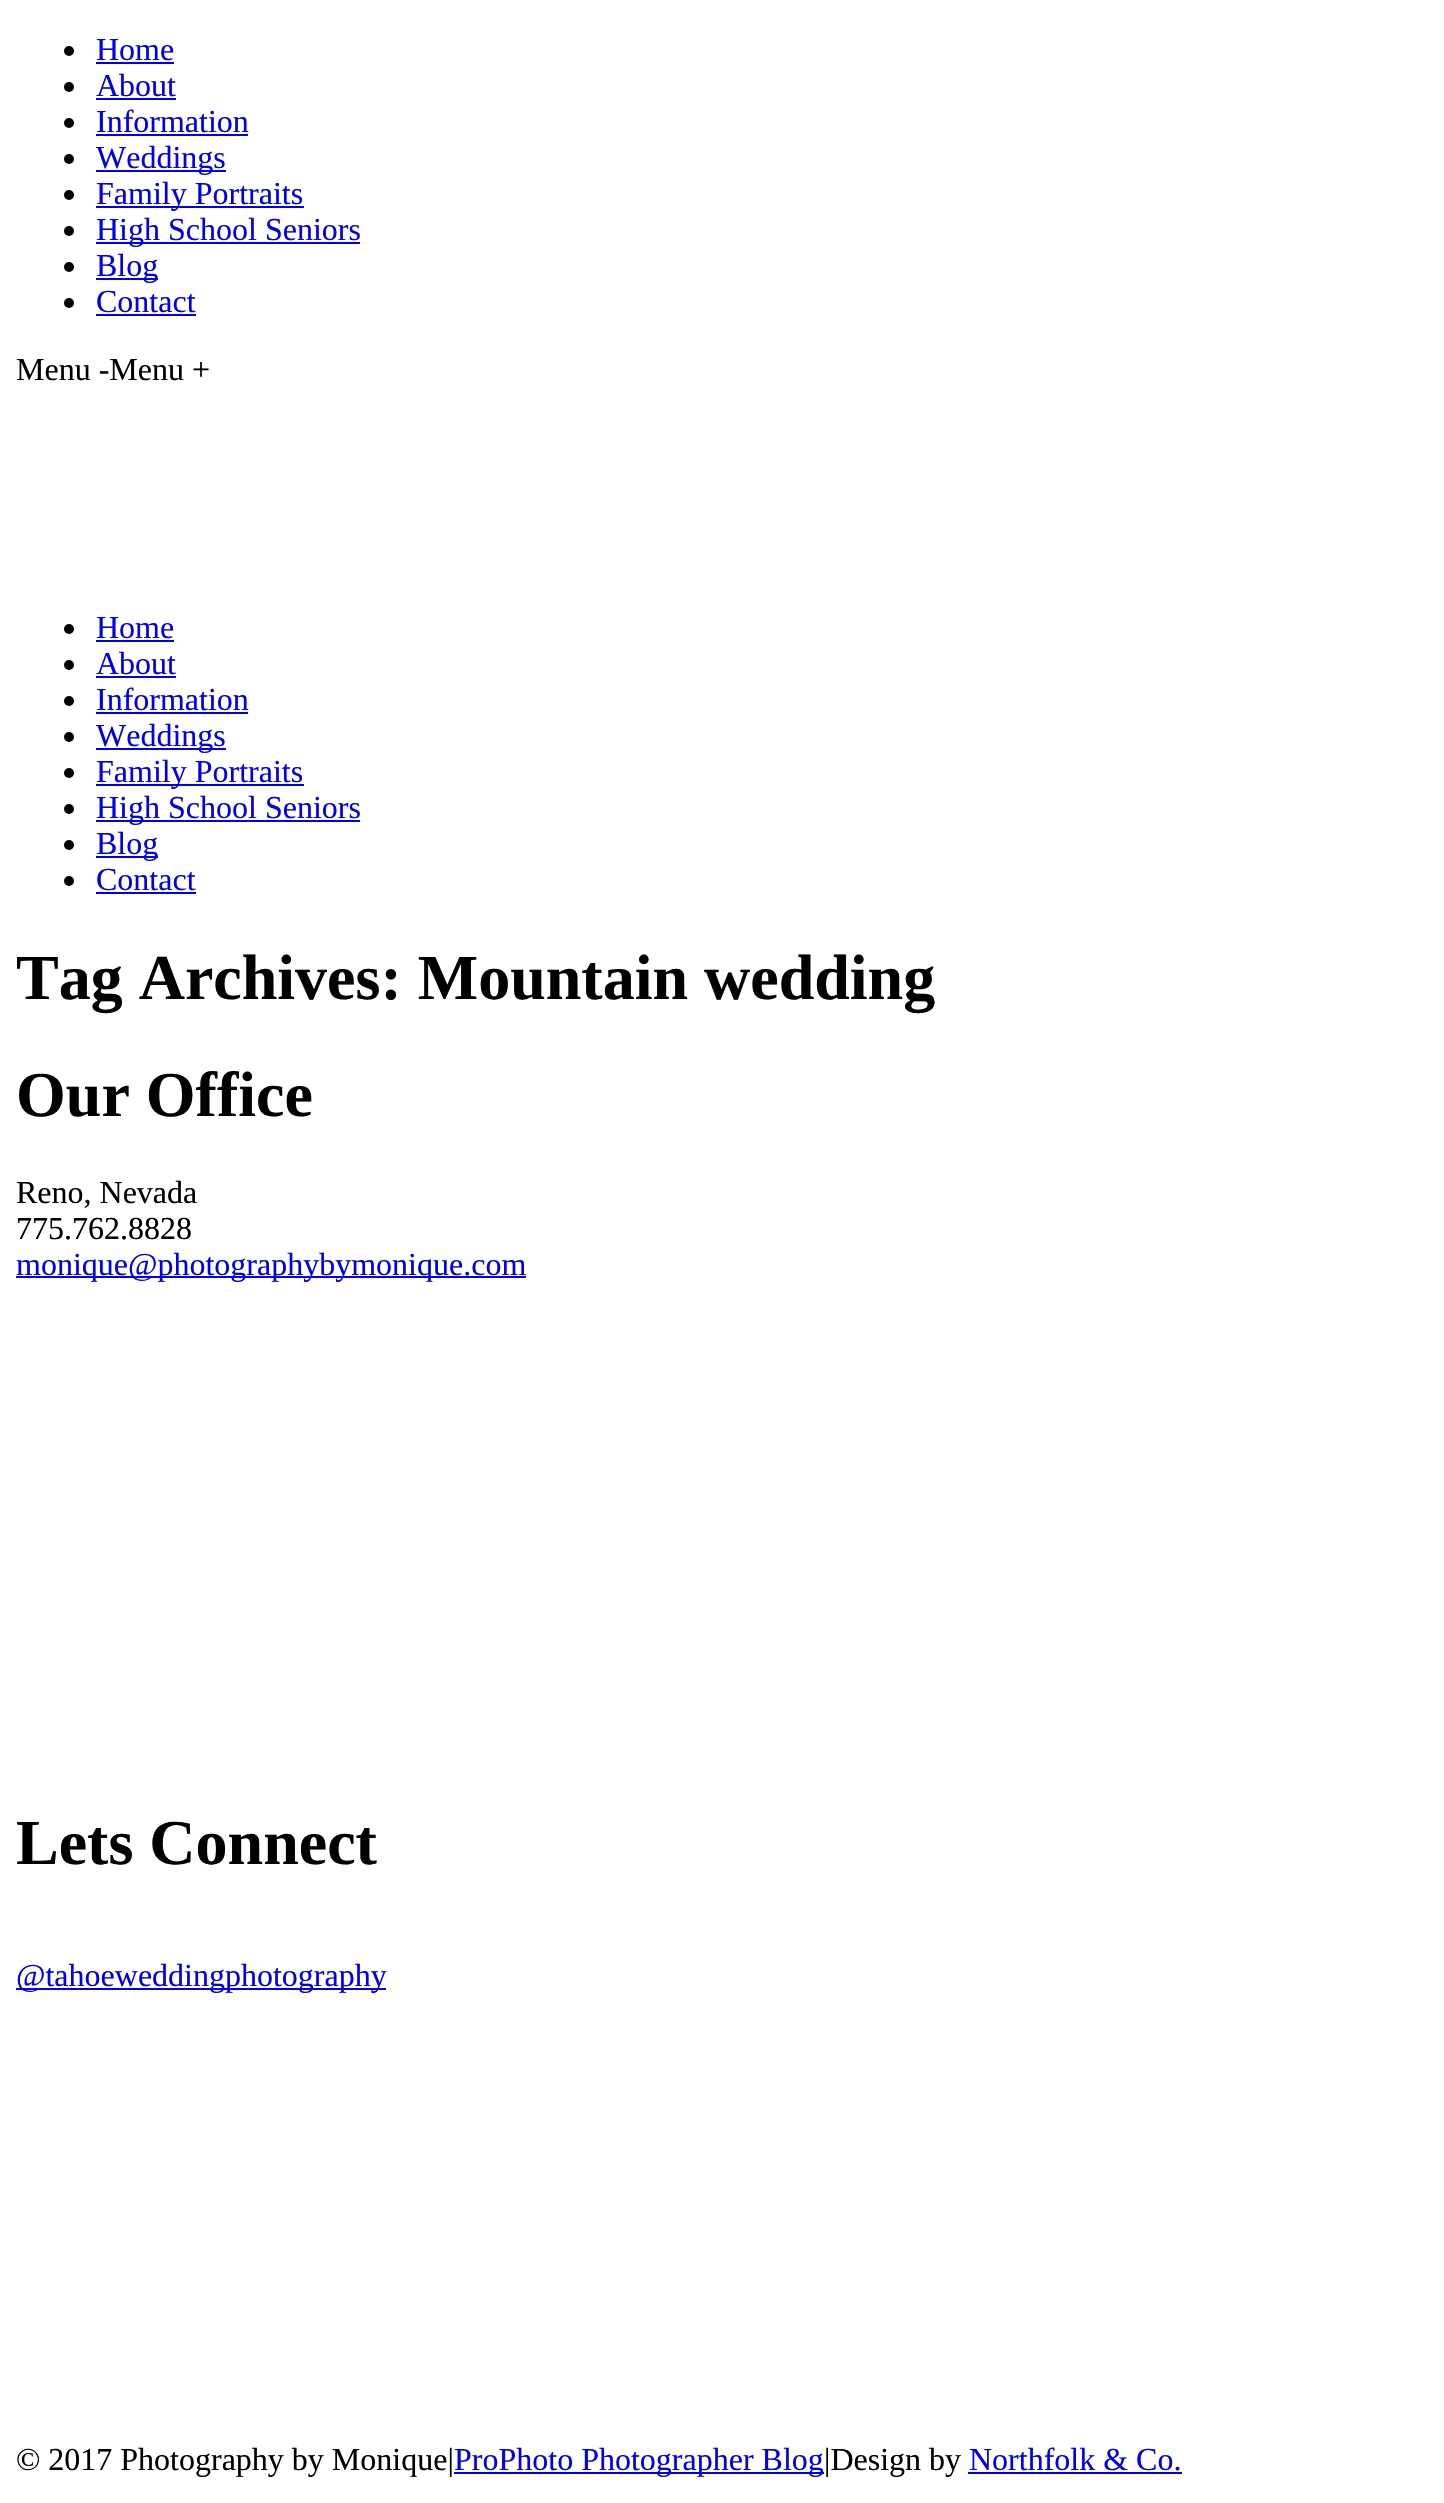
void draw(SkCanvas* canvas) {
    SkPaint paint;
    paint.setAntiAlias(true);
    canvas->clear(0xFFFFFFFF);
    paint.setColor(0xFF000000);
    canvas->drawCircle(69, 51, 5, paint);
    SkFont font1(fontMgr->matchFamilyStyle("Liberation Serif", SkFontStyle::Normal()), 32);
    font1.setSubpixel(true);
    paint.setColor(0xFF0000EE);
    canvas->drawString("Home", 96, 60, font1, paint);
    canvas->drawRect(SkRect::MakeXYWH(96, 62, 78, 2), paint);
    paint.setColor(0xFF000000);
    canvas->drawCircle(69, 87, 5, paint);
    paint.setColor(0xFF0000EE);
    canvas->drawString("About", 96, 96, font1, paint);
    canvas->drawRect(SkRect::MakeXYWH(96, 98, 80, 2), paint);
    paint.setColor(0xFF000000);
    canvas->drawCircle(69, 123, 5, paint);
    paint.setColor(0xFF0000EE);
    canvas->drawString("Information", 96, 132, font1, paint);
    canvas->drawRect(SkRect::MakeXYWH(96, 134, 152, 2), paint);
    paint.setColor(0xFF000000);
    canvas->drawCircle(69, 159, 5, paint);
    paint.setColor(0xFF0000EE);
    canvas->drawRect(SkRect::MakeXYWH(96, 170, 130, 2), paint);
    canvas->drawString("Weddings", 96, 168, font1, paint);
    paint.setColor(0xFF000000);
    canvas->drawCircle(69, 195, 5, paint);
    paint.setColor(0xFF0000EE);
    canvas->drawRect(SkRect::MakeXYWH(96, 206, 208, 2), paint);
    canvas->drawString("Family Portraits", 96, 204, font1, paint);
    paint.setColor(0xFF000000);
    canvas->drawCircle(69, 231, 5, paint);
    paint.setColor(0xFF0000EE);
    canvas->drawRect(SkRect::MakeXYWH(96, 242, 264, 2), paint);
    canvas->drawString("High School Seniors", 96, 240, font1, paint);
    paint.setColor(0xFF000000);
    canvas->drawCircle(69, 267, 5, paint);
    paint.setColor(0xFF0000EE);
    canvas->drawRect(SkRect::MakeXYWH(96, 278, 62, 2), paint);
    canvas->drawString("Blog", 96, 276, font1, paint);
    paint.setColor(0xFF000000);
    canvas->drawCircle(69, 303, 5, paint);
    paint.setColor(0xFF0000EE);
    canvas->drawString("Contact", 96, 312, font1, paint);
    canvas->drawRect(SkRect::MakeXYWH(96, 314, 100, 2), paint);
    paint.setColor(0xFF000000);
    canvas->drawString("Menu -Menu +", 16, 380, font1, paint);
    canvas->drawCircle(69, 629, 5, paint);
    paint.setColor(0xFF0000EE);
    canvas->drawString("Home", 96, 638, font1, paint);
    canvas->drawRect(SkRect::MakeXYWH(96, 640, 78, 2), paint);
    paint.setColor(0xFF000000);
    canvas->drawCircle(69, 665, 5, paint);
    paint.setColor(0xFF0000EE);
    canvas->drawString("About", 96, 674, font1, paint);
    canvas->drawRect(SkRect::MakeXYWH(96, 676, 80, 2), paint);
    paint.setColor(0xFF000000);
    canvas->drawCircle(69, 701, 5, paint);
    paint.setColor(0xFF0000EE);
    canvas->drawString("Information", 96, 710, font1, paint);
    canvas->drawRect(SkRect::MakeXYWH(96, 712, 152, 2), paint);
    paint.setColor(0xFF000000);
    canvas->drawCircle(69, 737, 5, paint);
    paint.setColor(0xFF0000EE);
    canvas->drawRect(SkRect::MakeXYWH(96, 748, 130, 2), paint);
    canvas->drawString("Weddings", 96, 746, font1, paint);
    paint.setColor(0xFF000000);
    canvas->drawCircle(69, 773, 5, paint);
    paint.setColor(0xFF0000EE);
    canvas->drawRect(SkRect::MakeXYWH(96, 784, 208, 2), paint);
    canvas->drawString("Family Portraits", 96, 782, font1, paint);
    paint.setColor(0xFF000000);
    canvas->drawCircle(69, 809, 5, paint);
    paint.setColor(0xFF0000EE);
    canvas->drawRect(SkRect::MakeXYWH(96, 820, 264, 2), paint);
    canvas->drawString("High School Seniors", 96, 818, font1, paint);
    paint.setColor(0xFF000000);
    canvas->drawCircle(69, 845, 5, paint);
    paint.setColor(0xFF0000EE);
    canvas->drawRect(SkRect::MakeXYWH(96, 856, 62, 2), paint);
    canvas->drawString("Blog", 96, 854, font1, paint);
    paint.setColor(0xFF000000);
    canvas->drawCircle(69, 881, 5, paint);
    paint.setColor(0xFF0000EE);
    canvas->drawString("Contact", 96, 890, font1, paint);
    canvas->drawRect(SkRect::MakeXYWH(96, 892, 100, 2), paint);
    SkFont font2(fontMgr->matchFamilyStyle("Liberation Serif", SkFontStyle::Bold()), 64);
    font2.setSubpixel(true);
    paint.setColor(0xFF000000);
    canvas->drawString("Tag Archives: Mountain wedding", 16, 999, font2, paint);
    canvas->drawString("Our Office", 16, 1116, font2, paint);
    canvas->drawString("Reno, Nevada", 16, 1203, font1, paint);
    canvas->drawString("775.762.8828", 16, 1239, font1, paint);
    paint.setColor(0xFF0000EE);
    canvas->drawRect(SkRect::MakeXYWH(16, 1276, 510, 2), paint);
    canvas->drawString("monique@photographybymonique.com", 16, 1275, font1, paint);
    paint.setColor(0xFF000000);
    canvas->drawString("Lets Connect", 16, 1864, font2, paint);
    paint.setColor(0xFF0000EE);
    canvas->drawRect(SkRect::MakeXYWH(16, 1988, 370, 2), paint);
    canvas->drawString("@tahoeweddingphotography", 16, 1986, font1, paint);
    paint.setColor(0xFF000000);
    canvas->drawString("© 2017 Photography by Monique|", 16, 2470, font1, paint);
    paint.setColor(0xFF0000EE);
    canvas->drawRect(SkRect::MakeXYWH(454, 2472, 370, 2), paint);
    canvas->drawString("ProPhoto Photographer Blog", 454, 2470, font1, paint);
    paint.setColor(0xFF000000);
    canvas->drawString("|Design by", 824, 2470, font1, paint);
    paint.setColor(0xFF0000EE);
    canvas->drawString("Northfolk & Co.", 969, 2470, font1, paint);
    canvas->drawRect(SkRect::MakeXYWH(968, 2472, 214, 2), paint);
}
